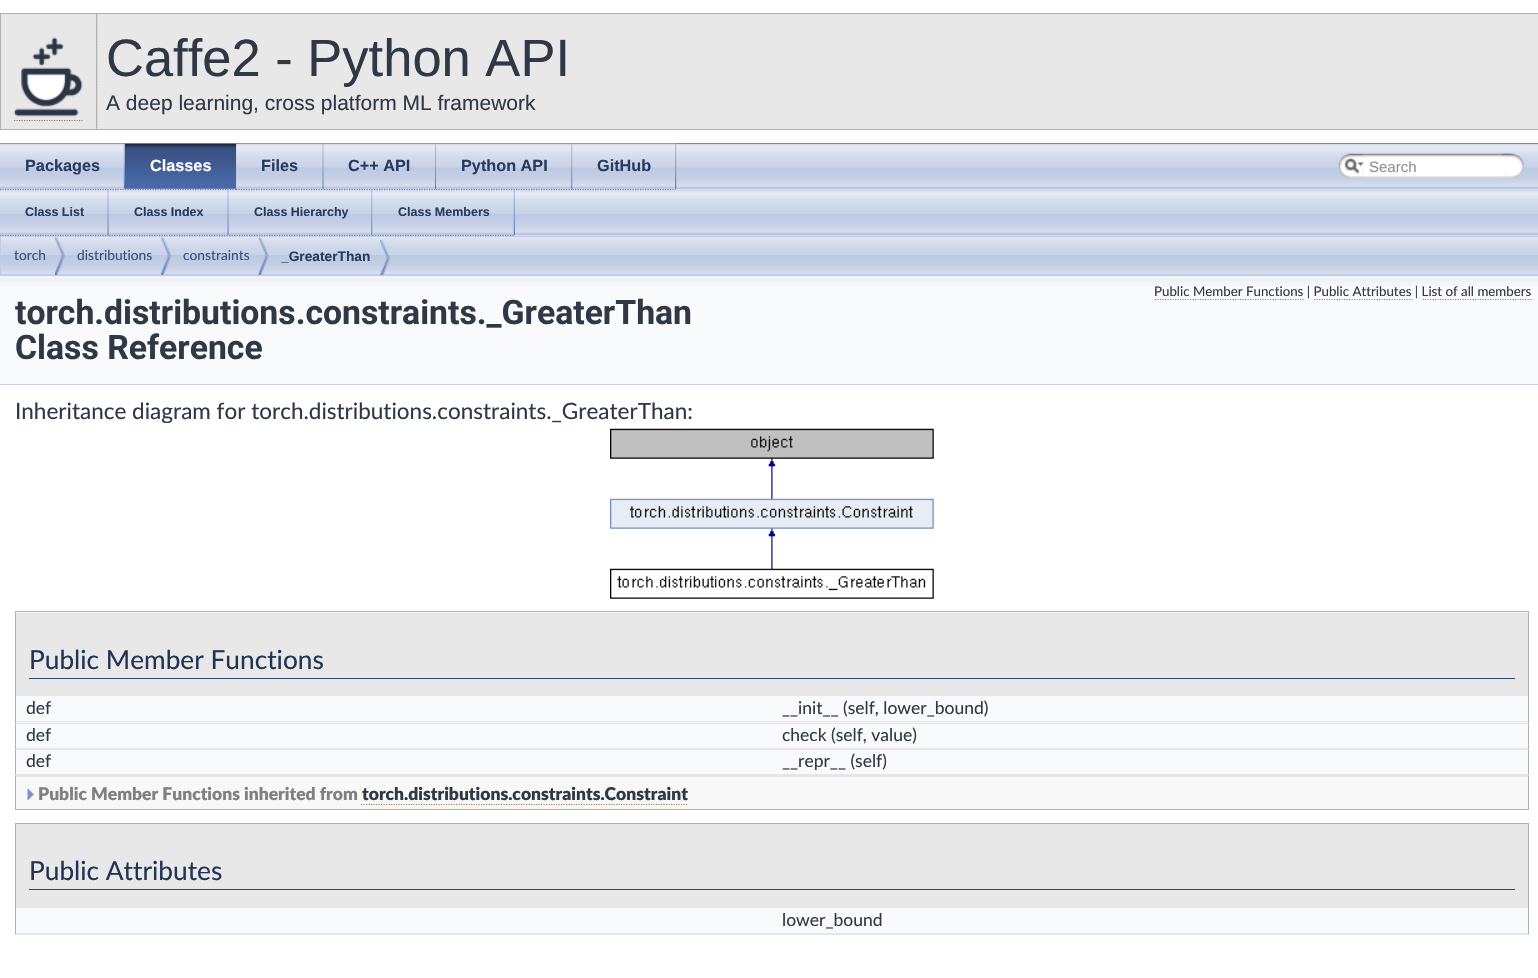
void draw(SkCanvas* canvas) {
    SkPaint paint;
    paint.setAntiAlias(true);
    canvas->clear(0xFFFFFFFF);
    paint.setColor(0xFF5373B4);
    canvas->drawRect(SkRect::MakeXYWH(125, 143, 1413, 1), paint);
    paint.setColor(0xFFB0B0B0);
    canvas->drawRect(SkRect::MakeXYWH(0, 13, 1538, 1), paint);
    paint.setColor(0xFFE8E8E8);
    canvas->drawRect(SkRect::MakeXYWH(1, 14, 1537, 115), paint);
    paint.setStyle(SkPaint::kStroke_Style);
    paint.setStrokeWidth(1.2f);
    paint.setColor(0xFFB0B0B0);
    paint.setPathEffect(SkDashPathEffect::Make({{1.25f, 1.25f}}, 0));
    canvas->drawPath(SkPathBuilder().moveTo(97, 14).lineTo(97, 130).detach(), paint);
    paint.setPathEffect(nullptr);
    paint.setStyle(SkPaint::kFill_Style);
    canvas->drawRect(SkRect::MakeXYWH(0, 129, 1538, 1), paint);
    canvas->drawRect(SkRect::MakeXYWH(0, 13, 1, 117), paint);
    canvas->drawRect(SkRect::MakeXYWH(96, 13, 1, 117), paint);
    canvas->drawImageRect(SkImages::DeferredFromEncodedData(SkData::MakeFromFileName("img1.png")), SkRect::MakeXYWH(13, 37, 70, 80), SkSamplingOptions());
    paint.setStyle(SkPaint::kStroke_Style);
    paint.setColor(0xFFA67B5B);
    paint.setPathEffect(SkDashPathEffect::Make({{1.25f, 1.25f}}, 0));
    canvas->drawPath(SkPathBuilder().moveTo(14, 120.5f).lineTo(82.5f, 120.5f).detach(), paint);
    paint.setPathEffect(nullptr);
    SkFont font1(fontMgr->matchFamilyStyle("Liberation Sans", SkFontStyle::Normal()), 52.5f);
    font1.setSubpixel(true);
    paint.setStyle(SkPaint::kFill_Style);
    paint.setColor(0xFF303846);
    canvas->drawString("Caffe2 - Python API", 106, 76, font1, paint);
    SkFont font2(fontMgr->matchFamilyStyle("Liberation Sans", SkFontStyle::Normal()), 21);
    font2.setSubpixel(true);
    canvas->drawString("A deep learning, cross platform ML framework", 106, 110, font2, paint);
    canvas->drawImageRect(SkImages::DeferredFromEncodedData(SkData::MakeFromFileName("img2.png")), SkRect::MakeXYWH(0, 143, 1538, 47), SkSamplingOptions());
    paint.setColor(0xFF8198C9);
    canvas->drawRect(SkRect::MakeXYWH(0, 143, 125, 1), paint);
    canvas->drawImageRect(SkImages::DeferredFromEncodedData(SkData::MakeFromFileName("img3.png")), SkRect::MakeXYWH(123, 143, 2, 46), SkSamplingOptions());
    canvas->drawImageRect(SkImages::DeferredFromEncodedData(SkData::MakeFromFileName("img17.png")), SkRect::MakeXYWH(108, 190, 1430, 46), SkSamplingOptions());
    paint.setStyle(SkPaint::kStroke_Style);
    paint.setColor(0xFFA67B5B);
    paint.setPathEffect(SkDashPathEffect::Make({{1.25f, 1.25f}}, 0));
    canvas->drawPath(SkPathBuilder().moveTo(0, 189.5f).lineTo(125, 189.5f).detach(), paint);
    paint.setPathEffect(nullptr);
    SkFont font3(fontMgr->matchFamilyStyle("Liberation Sans", SkFontStyle::Bold()), 16.25f);
    font3.setSubpixel(true);
    paint.setStyle(SkPaint::kFill_Style);
    paint.setColor(0xFF283A5D);
    canvas->drawString("Packages", 25, 171, font3, paint);
    canvas->drawImageRect(SkImages::DeferredFromEncodedData(SkData::MakeFromFileName("img4.png")), SkRect::MakeXYWH(125, 143, 112, 1), SkSamplingOptions());
    canvas->drawImageRect(SkImages::DeferredFromEncodedData(SkData::MakeFromFileName("img5.png")), SkRect::MakeXYWH(125, 143, 112, 46), SkSamplingOptions());
    paint.setStyle(SkPaint::kStroke_Style);
    paint.setColor(0xFFA67B5B);
    paint.setPathEffect(SkDashPathEffect::Make({{1.25f, 1.25f}}, 0));
    canvas->drawPath(SkPathBuilder().moveTo(125, 189.5f).lineTo(236, 189.5f).detach(), paint);
    paint.setPathEffect(nullptr);
    paint.setStyle(SkPaint::kFill_Style);
    paint.setColor(0xFFFFFFFF);
    canvas->drawString("Classes", 150, 171, font3, paint);
    canvas->drawImageRect(SkImages::DeferredFromEncodedData(SkData::MakeFromFileName("img6.png")), SkRect::MakeXYWH(236, 143, 88, 46), SkSamplingOptions());
    canvas->drawImageRect(SkImages::DeferredFromEncodedData(SkData::MakeFromFileName("img7.png")), SkRect::MakeXYWH(322, 143, 2, 46), SkSamplingOptions());
    paint.setStyle(SkPaint::kStroke_Style);
    paint.setColor(0xFFA67B5B);
    paint.setPathEffect(SkDashPathEffect::Make({{1.25f, 1.25f}}, 0));
    canvas->drawPath(SkPathBuilder().moveTo(236, 189.5f).lineTo(324, 189.5f).detach(), paint);
    paint.setPathEffect(nullptr);
    paint.setStyle(SkPaint::kFill_Style);
    paint.setColor(0xFF283A5D);
    canvas->drawString("Files", 261, 171, font3, paint);
    canvas->drawImageRect(SkImages::DeferredFromEncodedData(SkData::MakeFromFileName("img8.png")), SkRect::MakeXYWH(323, 143, 114, 47), SkSamplingOptions());
    canvas->drawImageRect(SkImages::DeferredFromEncodedData(SkData::MakeFromFileName("img9.png")), SkRect::MakeXYWH(435, 143, 2, 46), SkSamplingOptions());
    paint.setStyle(SkPaint::kStroke_Style);
    paint.setColor(0xFFA67B5B);
    paint.setPathEffect(SkDashPathEffect::Make({{1.25f, 1.25f}}, 0));
    canvas->drawPath(SkPathBuilder().moveTo(324, 189.5f).lineTo(436, 189.5f).detach(), paint);
    paint.setPathEffect(nullptr);
    paint.setStyle(SkPaint::kFill_Style);
    paint.setColor(0xFF283A5D);
    canvas->drawString("C++ API", 348, 171, font3, paint);
    canvas->drawImageRect(SkImages::DeferredFromEncodedData(SkData::MakeFromFileName("img10.png")), SkRect::MakeXYWH(436, 143, 137, 46), SkSamplingOptions());
    canvas->drawImageRect(SkImages::DeferredFromEncodedData(SkData::MakeFromFileName("img11.png")), SkRect::MakeXYWH(571, 143, 2, 46), SkSamplingOptions());
    paint.setStyle(SkPaint::kStroke_Style);
    paint.setColor(0xFFA67B5B);
    paint.setPathEffect(SkDashPathEffect::Make({{1.25f, 1.25f}}, 0));
    canvas->drawPath(SkPathBuilder().moveTo(436, 189.5f).lineTo(572.5f, 189.5f).detach(), paint);
    paint.setPathEffect(nullptr);
    paint.setStyle(SkPaint::kFill_Style);
    paint.setColor(0xFF283A5D);
    canvas->drawString("Python API", 461, 171, font3, paint);
    canvas->drawImageRect(SkImages::DeferredFromEncodedData(SkData::MakeFromFileName("img12.png")), SkRect::MakeXYWH(572, 143, 105, 47), SkSamplingOptions());
    canvas->drawImageRect(SkImages::DeferredFromEncodedData(SkData::MakeFromFileName("img9.png")), SkRect::MakeXYWH(675, 143, 2, 46), SkSamplingOptions());
    paint.setStyle(SkPaint::kStroke_Style);
    paint.setColor(0xFFA67B5B);
    paint.setPathEffect(SkDashPathEffect::Make({{1.25f, 1.25f}}, 0));
    canvas->drawPath(SkPathBuilder().moveTo(572.5f, 189.5f).lineTo(676, 189.5f).detach(), paint);
    paint.setPathEffect(nullptr);
    paint.setStyle(SkPaint::kFill_Style);
    paint.setColor(0xFF283A5D);
    canvas->drawString("GitHub", 597, 171, font3, paint);
    canvas->drawImageRect(SkImages::DeferredFromEncodedData(SkData::MakeFromFileName("img13.png")), SkRect::MakeXYWH(1338, 153, 26, 25), SkSamplingOptions());
    canvas->drawImageRect(SkImages::DeferredFromEncodedData(SkData::MakeFromFileName("img14.png")), SkRect::MakeXYWH(1344, 158, 20, 16), SkSamplingOptions());
    canvas->drawImageRect(SkImages::DeferredFromEncodedData(SkData::MakeFromFileName("img15.png")), SkRect::MakeXYWH(1363, 153, 147, 25), SkSamplingOptions());
    SkFont font4(fontMgr->matchFamilyStyle("Liberation Sans", SkFontStyle::Normal()), 15);
    font4.setSubpixel(true);
    paint.setColor(0xFF909090);
    canvas->drawString("Search", 1369, 172, font4, paint);
    canvas->drawImageRect(SkImages::DeferredFromEncodedData(SkData::MakeFromFileName("img16.png")), SkRect::MakeXYWH(1501, 153, 23, 25), SkSamplingOptions());
    canvas->drawImageRect(SkImages::DeferredFromEncodedData(SkData::MakeFromFileName("img18.png")), SkRect::MakeXYWH(0, 190, 109, 46), SkSamplingOptions());
    canvas->drawImageRect(SkImages::DeferredFromEncodedData(SkData::MakeFromFileName("img19.png")), SkRect::MakeXYWH(107, 190, 2, 45), SkSamplingOptions());
    paint.setStyle(SkPaint::kStroke_Style);
    paint.setColor(0xFFA67B5B);
    paint.setPathEffect(SkDashPathEffect::Make({{1.25f, 1.25f}}, 0));
    canvas->drawPath(SkPathBuilder().moveTo(0, 235.5f).lineTo(109, 235.5f).detach(), paint);
    paint.setPathEffect(nullptr);
    SkFont font5(fontMgr->matchFamilyStyle("Liberation Sans", SkFontStyle::Bold()), 12.5f);
    font5.setSubpixel(true);
    paint.setStyle(SkPaint::kFill_Style);
    paint.setColor(0xFF283A5D);
    canvas->drawString("Class List", 25, 216, font5, paint);
    canvas->drawImageRect(SkImages::DeferredFromEncodedData(SkData::MakeFromFileName("img20.png")), SkRect::MakeXYWH(108, 190, 121, 46), SkSamplingOptions());
    canvas->drawImageRect(SkImages::DeferredFromEncodedData(SkData::MakeFromFileName("img19.png")), SkRect::MakeXYWH(227, 190, 2, 45), SkSamplingOptions());
    paint.setStyle(SkPaint::kStroke_Style);
    paint.setColor(0xFFA67B5B);
    paint.setPathEffect(SkDashPathEffect::Make({{1.25f, 1.25f}}, 0));
    canvas->drawPath(SkPathBuilder().moveTo(109, 235.5f).lineTo(229, 235.5f).detach(), paint);
    paint.setPathEffect(nullptr);
    paint.setStyle(SkPaint::kFill_Style);
    paint.setColor(0xFF283A5D);
    canvas->drawString("Class Index", 134, 216, font5, paint);
    canvas->drawImageRect(SkImages::DeferredFromEncodedData(SkData::MakeFromFileName("img21.png")), SkRect::MakeXYWH(228, 190, 145, 46), SkSamplingOptions());
    canvas->drawImageRect(SkImages::DeferredFromEncodedData(SkData::MakeFromFileName("img22.png")), SkRect::MakeXYWH(371, 190, 2, 45), SkSamplingOptions());
    paint.setStyle(SkPaint::kStroke_Style);
    paint.setColor(0xFFA67B5B);
    paint.setPathEffect(SkDashPathEffect::Make({{1.25f, 1.25f}}, 0));
    canvas->drawPath(SkPathBuilder().moveTo(229, 235.5f).lineTo(372.5f, 235.5f).detach(), paint);
    paint.setPathEffect(nullptr);
    paint.setStyle(SkPaint::kFill_Style);
    paint.setColor(0xFF283A5D);
    canvas->drawString("Class Hierarchy", 254, 216, font5, paint);
    canvas->drawImageRect(SkImages::DeferredFromEncodedData(SkData::MakeFromFileName("img23.png")), SkRect::MakeXYWH(372, 190, 143, 46), SkSamplingOptions());
    canvas->drawImageRect(SkImages::DeferredFromEncodedData(SkData::MakeFromFileName("img24.png")), SkRect::MakeXYWH(513, 190, 2, 45), SkSamplingOptions());
    paint.setStyle(SkPaint::kStroke_Style);
    paint.setColor(0xFFA67B5B);
    paint.setPathEffect(SkDashPathEffect::Make({{1.25f, 1.25f}}, 0));
    canvas->drawPath(SkPathBuilder().moveTo(372.5f, 235.5f).lineTo(515, 235.5f).detach(), paint);
    paint.setPathEffect(nullptr);
    paint.setStyle(SkPaint::kFill_Style);
    paint.setColor(0xFF283A5D);
    canvas->drawString("Class Members", 398, 216, font5, paint);
    paint.setColor(0xFFF9FAFC);
    canvas->drawRect(SkRect::MakeXYWH(0, 276, 1538, 108), paint);
    canvas->drawImageRect(SkImages::DeferredFromEncodedData(SkData::MakeFromFileName("img30.png")), SkRect::MakeXYWH(0, 276, 1538, 10), SkSamplingOptions());
    canvas->drawImageRect(SkImages::DeferredFromEncodedData(SkData::MakeFromFileName("img25.png")), SkRect::MakeXYWH(0, 237, 1538, 40), SkSamplingOptions());
    paint.setStyle(SkPaint::kStroke_Style);
    paint.setStrokeWidth(1);
    paint.setColor(0xFFC2CDE4);
    canvas->drawRect(SkRect::MakeXYWH(0.5f, 236.5f, 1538, 39), paint);
    canvas->drawImageRect(SkImages::DeferredFromEncodedData(SkData::MakeFromFileName("img26.png")), SkRect::MakeXYWH(55, 237, 10, 38), SkSamplingOptions());
    SkFont font6(fontMgr->matchFamilyStyle("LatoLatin", SkFontStyle::Normal()), 13.75f);
    font6.setSubpixel(true);
    paint.setStyle(SkPaint::kFill_Style);
    paint.setColor(0xFF364D7C);
    canvas->drawString("torch", 14, 260, font6, paint);
    canvas->drawImageRect(SkImages::DeferredFromEncodedData(SkData::MakeFromFileName("img27.png")), SkRect::MakeXYWH(161, 237, 11, 38), SkSamplingOptions());
    canvas->drawString("distributions", 77, 260, font6, paint);
    canvas->drawImageRect(SkImages::DeferredFromEncodedData(SkData::MakeFromFileName("img28.png")), SkRect::MakeXYWH(258, 237, 11, 38), SkSamplingOptions());
    canvas->drawString("constraints", 183, 260, font6, paint);
    canvas->drawImageRect(SkImages::DeferredFromEncodedData(SkData::MakeFromFileName("img29.png")), SkRect::MakeXYWH(380, 240, 10, 35), SkSamplingOptions());
    SkFont font7(fontMgr->matchFamilyStyle("Liberation Sans", SkFontStyle::Bold()), 13.75f);
    font7.setSubpixel(true);
    paint.setColor(0xFF283A5D);
    canvas->drawString("_GreaterThan", 281, 261, font7, paint);
    paint.setColor(0xFFC4CFE5);
    canvas->drawRect(SkRect::MakeXYWH(0, 384, 1538, 1), paint);
    paint.setStyle(SkPaint::kStroke_Style);
    paint.setStrokeWidth(1.2f);
    paint.setColor(0xFFA67B5B);
    paint.setPathEffect(SkDashPathEffect::Make({{1.25f, 1.25f}}, 0));
    canvas->drawPath(SkPathBuilder().moveTo(1155, 299.5f).lineTo(1304, 299.5f).detach(), paint);
    paint.setPathEffect(nullptr);
    SkFont font8(fontMgr->matchFamilyStyle("LatoLatin", SkFontStyle::Normal()), 13.3f);
    font8.setSubpixel(true);
    paint.setStyle(SkPaint::kFill_Style);
    paint.setColor(0xFF303846);
    canvas->drawString("Public Member Functions | Public Attributes | List of all members", 1154, 296, font8, paint);
    paint.setStyle(SkPaint::kStroke_Style);
    paint.setColor(0xFFA67B5B);
    paint.setPathEffect(SkDashPathEffect::Make({{1.25f, 1.25f}}, 0));
    canvas->drawPath(SkPathBuilder().moveTo(1314, 299.5f).lineTo(1412.5f, 299.5f).detach(), paint);
    paint.setPathEffect(nullptr);
    paint.setPathEffect(SkDashPathEffect::Make({{1.25f, 1.25f}}, 0));
    canvas->drawPath(SkPathBuilder().moveTo(1422.5f, 299.5f).lineTo(1532.5f, 299.5f).detach(), paint);
    paint.setPathEffect(nullptr);
    SkFont font9(fontMgr->matchFamilyStyle("Roboto", SkFontStyle::Bold()), 33.75f);
    font9.setSubpixel(true);
    paint.setStyle(SkPaint::kFill_Style);
    paint.setColor(0xFF303846);
    canvas->drawString("torch.distributions.constraints._GreaterThan", 15, 324, font9, paint);
    canvas->drawString("Class Reference", 15, 359, font9, paint);
    SkFont font10(fontMgr->matchFamilyStyle("LatoLatin", SkFontStyle::Normal()), 22.5f);
    font10.setSubpixel(true);
    canvas->drawString("Inheritance diagram for torch.distributions.constraints._GreaterThan:", 15, 419, font10, paint);
    canvas->drawImageRect(SkImages::DeferredFromEncodedData(SkData::MakeFromFileName("img31.png")), SkRect::MakeXYWH(610, 428, 324, 171), SkSamplingOptions());
    paint.setColor(0xFFF8F8F8);
    canvas->drawRect(SkRect::MakeXYWH(16, 612, 1512, 197), paint);
    paint.setColor(0xFFB0B0B0);
    canvas->drawRect(SkRect::MakeXYWH(15, 611, 1514, 1), paint);
    paint.setColor(0xFFE8E8E8);
    canvas->drawRect(SkRect::MakeXYWH(16, 721, 1513, 1), paint);
    canvas->drawRect(SkRect::MakeXYWH(16, 748, 1513, 1), paint);
    canvas->drawRect(SkRect::MakeXYWH(16, 774, 1513, 3), paint);
    paint.setColor(0xFFB0B0B0);
    canvas->drawRect(SkRect::MakeXYWH(1528, 611, 1, 199), paint);
    canvas->drawRect(SkRect::MakeXYWH(15, 809, 1514, 1), paint);
    canvas->drawRect(SkRect::MakeXYWH(15, 611, 1, 199), paint);
    paint.setColor(0xFFE8E8E8);
    canvas->drawRect(SkRect::MakeXYWH(16, 613, 1512, 83), paint);
    paint.setColor(0xFF324770);
    canvas->drawRect(SkRect::MakeXYWH(29, 678, 1486, 1), paint);
    SkFont font11(fontMgr->matchFamilyStyle("LatoLatin", SkFontStyle::Normal()), 26.25f);
    font11.setSubpixel(true);
    paint.setColor(0xFF223354);
    canvas->drawString("Public Member Functions", 29, 669, font11, paint);
    paint.setColor(0xFFF9FAFC);
    canvas->drawRect(SkRect::MakeXYWH(16, 696, 1512, 25), paint);
    SkFont font12(fontMgr->matchFamilyStyle("LatoLatin", SkFontStyle::Normal()), 17.5f);
    font12.setSubpixel(true);
    paint.setColor(0xFF303846);
    canvas->drawString("def", 26, 714, font12, paint);
    canvas->drawString("__init__ (self, lower_bound)", 782, 714, font12, paint);
    paint.setColor(0xFFDEE4F0);
    canvas->drawRect(SkRect::MakeXYWH(15, 723, 1514, 1), paint);
    paint.setColor(0xFFF9FAFC);
    canvas->drawRect(SkRect::MakeXYWH(16, 724, 1512, 24), paint);
    paint.setColor(0xFF303846);
    canvas->drawString("def", 26, 741, font12, paint);
    canvas->drawString("check (self, value)", 782, 741, font12, paint);
    paint.setColor(0xFFDEE4F0);
    canvas->drawRect(SkRect::MakeXYWH(15, 749, 1514, 1), paint);
    paint.setColor(0xFFF9FAFC);
    canvas->drawRect(SkRect::MakeXYWH(16, 750, 1512, 24), paint);
    paint.setColor(0xFF303846);
    canvas->drawString("def", 26, 767, font12, paint);
    canvas->drawString("__repr__ (self)", 782, 767, font12, paint);
    paint.setColor(0xFFDEE4F0);
    canvas->drawRect(SkRect::MakeXYWH(15, 775, 1514, 1), paint);
    canvas->drawImageRect(SkImages::DeferredFromEncodedData(SkData::MakeFromFileName("img32.png")), SkRect::MakeXYWH(27, 788, 7, 12), SkSamplingOptions());
    SkFont font13(fontMgr->matchFamilyStyle("LatoLatin", SkFontStyle(900, SkFontStyle::kNormal_Width, SkFontStyle::kUpright_Slant)), 17.5f);
    font13.setSubpixel(true);
    paint.setColor(0xFF808080);
    canvas->drawString("Public Member Functions inherited from", 38, 800, font13, paint);
    paint.setColor(0xFF303846);
    canvas->drawString("torch.distributions.constraints.Constraint", 362, 800, font13, paint);
    paint.setStyle(SkPaint::kStroke_Style);
    paint.setColor(0xFFA67B5B);
    paint.setPathEffect(SkDashPathEffect::Make({{1.25f, 1.25f}}, 0));
    canvas->drawPath(SkPathBuilder().moveTo(361, 804.5f).lineTo(687.5f, 804.5f).detach(), paint);
    paint.setPathEffect(nullptr);
    paint.setStyle(SkPaint::kFill_Style);
    paint.setColor(0xFFB0B0B0);
    canvas->drawRect(SkRect::MakeXYWH(15, 823, 1514, 1), paint);
    paint.setColor(0xFFE8E8E8);
    canvas->drawRect(SkRect::MakeXYWH(16, 933, 1513, 1), paint);
    paint.setColor(0xFFB0B0B0);
    canvas->drawRect(SkRect::MakeXYWH(1528, 823, 1, 112), paint);
    canvas->drawRect(SkRect::MakeXYWH(15, 823, 1, 112), paint);
    paint.setColor(0xFFE8E8E8);
    canvas->drawRect(SkRect::MakeXYWH(16, 824, 1512, 84), paint);
    paint.setColor(0xFF324770);
    canvas->drawRect(SkRect::MakeXYWH(29, 889, 1486, 1), paint);
    paint.setColor(0xFF223354);
    canvas->drawString("Public Attributes", 29, 880, font11, paint);
    paint.setColor(0xFFF9FAFC);
    canvas->drawRect(SkRect::MakeXYWH(16, 908, 1512, 25), paint);
    paint.setColor(0xFF303846);
    canvas->drawString("lower_bound", 782, 926, font12, paint);
    paint.setColor(0xFFDEE4F0);
    canvas->drawRect(SkRect::MakeXYWH(15, 934, 1514, 1), paint);
}
